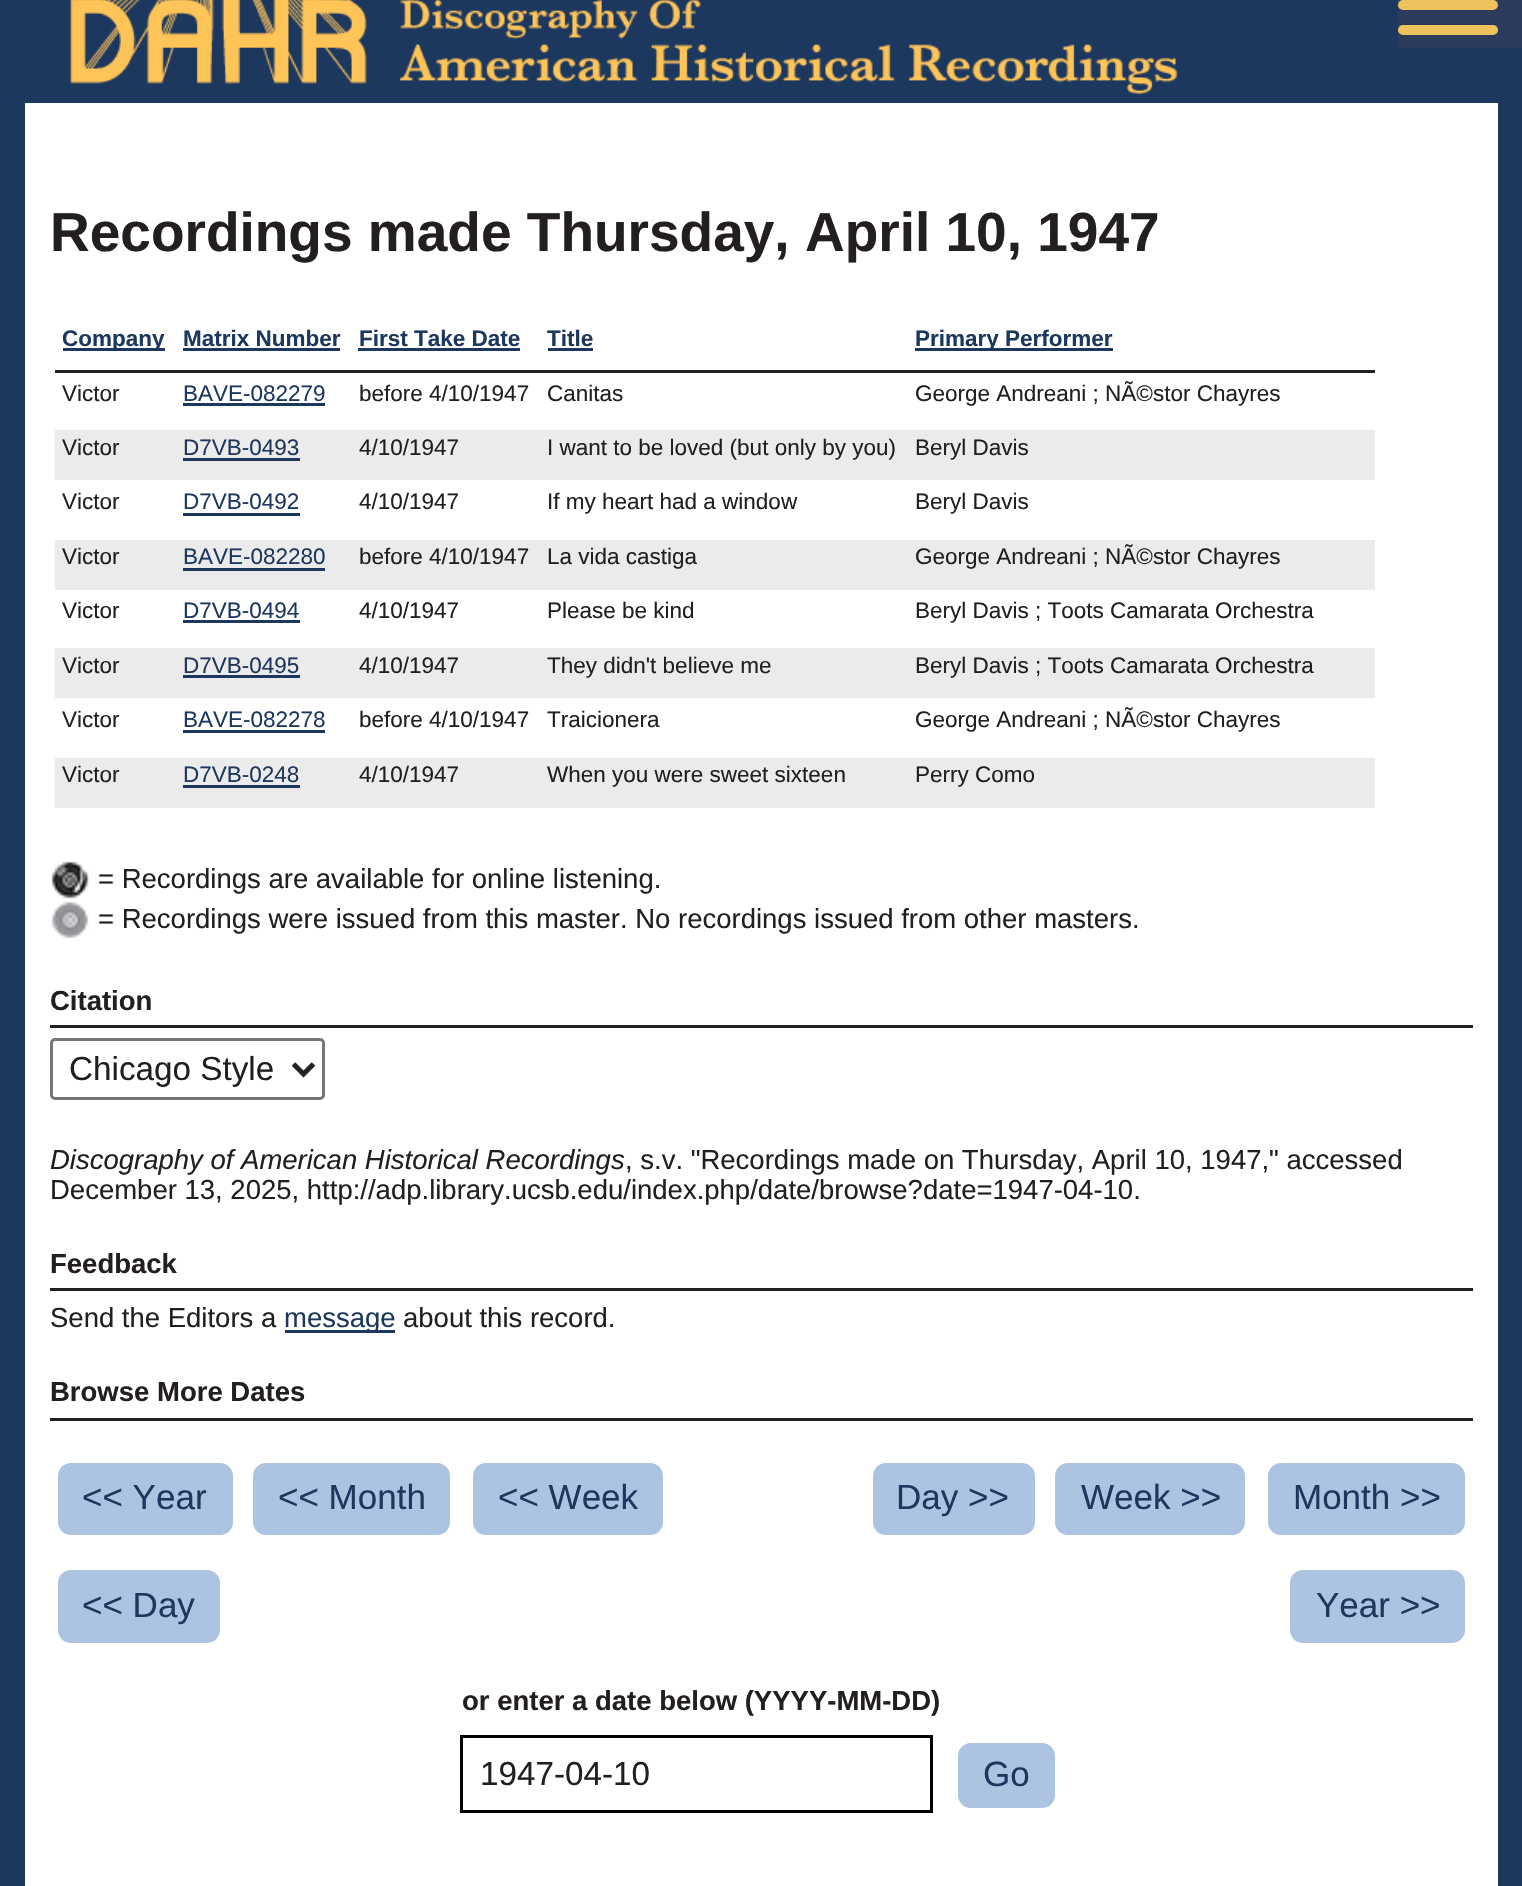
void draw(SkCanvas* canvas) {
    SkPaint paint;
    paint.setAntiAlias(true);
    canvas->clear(0xFF1D385E);
    canvas->drawImageRect(SkImages::DeferredFromEncodedData(SkData::MakeFromFileName("img1.png")), SkRect::MakeXYWH(70, 0, 1108, 94), SkSamplingOptions());
    paint.setColor(0xFF2C3B5C);
    canvas->drawRect(SkRect::MakeXYWH(1398, 0, 124, 48), paint);
    paint.setColor(0xFFEEC35D);
    canvas->drawRoundRect(SkRect::MakeXYWH(1398, 0, 100, 10), 5, 5, paint);
    canvas->drawRoundRect(SkRect::MakeXYWH(1398, 25, 100, 10), 5, 5, paint);
    paint.setColor(0xFFFFFFFF);
    canvas->drawRect(SkRect::MakeXYWH(25, 103, 1473, 1783), paint);
    SkFont font1(fontMgr->matchFamilyStyle("Liberation Sans", SkFontStyle::Bold()), 55);
    font1.setSubpixel(true);
    paint.setColor(0xFF231F20);
    canvas->drawString("Recordings made Thursday, April 10, 1947", 50, 251, font1, paint);
    canvas->drawRect(SkRect::MakeXYWH(55, 370, 1320, 3), paint);
    paint.setColor(0xFF1D385E);
    canvas->drawRect(SkRect::MakeXYWH(63, 348, 102, 3), paint);
    SkFont font2(fontMgr->matchFamilyStyle("Liberation Sans", SkFontStyle::Bold()), 22.5f);
    font2.setSubpixel(true);
    canvas->drawString("Company", 62, 346, font2, paint);
    canvas->drawString("Matrix Number", 183, 346, font2, paint);
    canvas->drawRect(SkRect::MakeXYWH(183, 348, 157, 3), paint);
    canvas->drawString("First Take Date", 359, 346, font2, paint);
    canvas->drawRect(SkRect::MakeXYWH(358, 348, 162, 3), paint);
    canvas->drawString("Title", 547, 346, font2, paint);
    canvas->drawRect(SkRect::MakeXYWH(548, 348, 45, 3), paint);
    canvas->drawRect(SkRect::MakeXYWH(915, 348, 198, 3), paint);
    canvas->drawString("Primary Performer", 915, 346, font2, paint);
    SkFont font3(fontMgr->matchFamilyStyle("Liberation Sans", SkFontStyle::Normal()), 22.5f);
    font3.setSubpixel(true);
    paint.setColor(0xFF231F20);
    canvas->drawString("Victor", 62, 401, font3, paint);
    paint.setColor(0xFF1D385E);
    canvas->drawString("BAVE-082279", 183, 401, font3, paint);
    canvas->drawRect(SkRect::MakeXYWH(183, 403, 142, 3), paint);
    paint.setColor(0xFF231F20);
    canvas->drawString("before 4/10/1947", 359, 401, font3, paint);
    canvas->drawString("Canitas", 547, 401, font3, paint);
    canvas->drawString("George Andreani ; NÃ©stor Chayres", 915, 401, font3, paint);
    paint.setColor(0xFFEBEBEB);
    canvas->drawRect(SkRect::MakeXYWH(55, 430, 1320, 50), paint);
    paint.setColor(0xFF231F20);
    canvas->drawString("Victor", 62, 455, font3, paint);
    paint.setColor(0xFF1D385E);
    canvas->drawString("D7VB-0493", 183, 455, font3, paint);
    canvas->drawRect(SkRect::MakeXYWH(183, 458, 117, 3), paint);
    paint.setColor(0xFF231F20);
    canvas->drawString("4/10/1947", 359, 455, font3, paint);
    canvas->drawString("I want to be loved (but only by you)", 547, 455, font3, paint);
    canvas->drawString("Beryl Davis", 915, 455, font3, paint);
    canvas->drawString("Victor", 62, 509, font3, paint);
    paint.setColor(0xFF1D385E);
    canvas->drawString("D7VB-0492", 183, 509, font3, paint);
    canvas->drawRect(SkRect::MakeXYWH(183, 513, 117, 3), paint);
    paint.setColor(0xFF231F20);
    canvas->drawString("4/10/1947", 359, 509, font3, paint);
    canvas->drawString("If my heart had a window", 547, 509, font3, paint);
    canvas->drawString("Beryl Davis", 915, 509, font3, paint);
    paint.setColor(0xFFEBEBEB);
    canvas->drawRect(SkRect::MakeXYWH(55, 540, 1320, 50), paint);
    paint.setColor(0xFF231F20);
    canvas->drawString("Victor", 62, 564, font3, paint);
    paint.setColor(0xFF1D385E);
    canvas->drawString("BAVE-082280", 183, 564, font3, paint);
    canvas->drawRect(SkRect::MakeXYWH(183, 568, 142, 3), paint);
    paint.setColor(0xFF231F20);
    canvas->drawString("before 4/10/1947", 359, 564, font3, paint);
    canvas->drawString("La vida castiga", 547, 564, font3, paint);
    canvas->drawString("George Andreani ; NÃ©stor Chayres", 915, 564, font3, paint);
    canvas->drawString("Victor", 62, 618, font3, paint);
    paint.setColor(0xFF1D385E);
    canvas->drawString("D7VB-0494", 183, 618, font3, paint);
    canvas->drawRect(SkRect::MakeXYWH(183, 620, 117, 3), paint);
    paint.setColor(0xFF231F20);
    canvas->drawString("4/10/1947", 359, 618, font3, paint);
    canvas->drawString("Please be kind", 547, 618, font3, paint);
    canvas->drawString("Beryl Davis ; Toots Camarata Orchestra", 915, 618, font3, paint);
    paint.setColor(0xFFEBEBEB);
    canvas->drawRect(SkRect::MakeXYWH(55, 648, 1320, 50), paint);
    paint.setColor(0xFF231F20);
    canvas->drawString("Victor", 62, 673, font3, paint);
    paint.setColor(0xFF1D385E);
    canvas->drawString("D7VB-0495", 183, 673, font3, paint);
    canvas->drawRect(SkRect::MakeXYWH(183, 675, 117, 3), paint);
    paint.setColor(0xFF231F20);
    canvas->drawString("4/10/1947", 359, 673, font3, paint);
    canvas->drawString("They didn't believe me", 547, 673, font3, paint);
    canvas->drawString("Beryl Davis ; Toots Camarata Orchestra", 915, 673, font3, paint);
    canvas->drawString("Victor", 62, 727, font3, paint);
    paint.setColor(0xFF1D385E);
    canvas->drawString("BAVE-082278", 183, 727, font3, paint);
    canvas->drawRect(SkRect::MakeXYWH(183, 730, 142, 3), paint);
    paint.setColor(0xFF231F20);
    canvas->drawString("before 4/10/1947", 359, 727, font3, paint);
    canvas->drawString("Traicionera", 547, 727, font3, paint);
    canvas->drawString("George Andreani ; NÃ©stor Chayres", 915, 727, font3, paint);
    paint.setColor(0xFFEBEBEB);
    canvas->drawRect(SkRect::MakeXYWH(55, 758, 1320, 50), paint);
    paint.setColor(0xFF231F20);
    canvas->drawString("Victor", 62, 782, font3, paint);
    paint.setColor(0xFF1D385E);
    canvas->drawString("D7VB-0248", 183, 782, font3, paint);
    canvas->drawRect(SkRect::MakeXYWH(183, 785, 117, 3), paint);
    paint.setColor(0xFF231F20);
    canvas->drawString("4/10/1947", 359, 782, font3, paint);
    canvas->drawString("When you were sweet sixteen", 547, 782, font3, paint);
    canvas->drawString("Perry Como", 915, 782, font3, paint);
    canvas->drawImageRect(SkImages::DeferredFromEncodedData(SkData::MakeFromFileName("img2.png")), SkRect::MakeXYWH(51, 861, 38, 38), SkSamplingOptions());
    SkFont font4(fontMgr->matchFamilyStyle("Liberation Sans", SkFontStyle::Normal()), 27.5f);
    font4.setSubpixel(true);
    canvas->drawString("= Recordings are available for online listening.", 98, 888, font4, paint);
    canvas->drawImageRect(SkImages::DeferredFromEncodedData(SkData::MakeFromFileName("img3.png")), SkRect::MakeXYWH(51, 901, 38, 38), SkSamplingOptions());
    canvas->drawString("= Recordings were issued from this master. No recordings issued from other masters.", 98, 928, font4, paint);
    canvas->drawRect(SkRect::MakeXYWH(50, 1025, 1423, 3), paint);
    SkFont font5(fontMgr->matchFamilyStyle("Liberation Sans", SkFontStyle::Bold()), 27.5f);
    font5.setSubpixel(true);
    canvas->drawString("Citation", 50, 1010, font5, paint);
    paint.setStyle(SkPaint::kStroke_Style);
    paint.setStrokeWidth(3);
    paint.setColor(0xFF767676);
    canvas->drawRoundRect(SkRect::MakeXYWH(51.5f, 1039.5f, 272, 59), 3.5f, 3.5f, paint);
    paint.setStrokeWidth(5);
    paint.setColor(0xFF222222);
    canvas->drawPath(SkPathBuilder().moveTo(293.5f, 1064).lineTo(303.5f, 1074).lineTo(313.5f, 1064).detach(), paint);
    SkFont font6(fontMgr->matchFamilyStyle("Liberation Sans", SkFontStyle::Normal()), 33.25f);
    font6.setSubpixel(true);
    paint.setStyle(SkPaint::kFill_Style);
    paint.setColor(0xFF231F20);
    canvas->drawString("Chicago Style", 69, 1080, font6, paint);
    SkFont font7(fontMgr->matchFamilyStyle("Liberation Sans", SkFontStyle::Italic()), 27.5f);
    font7.setSubpixel(true);
    canvas->drawString("Discography of American Historical Recordings", 50, 1169, font7, paint);
    canvas->drawString(", s.v. \"Recordings made on Thursday, April 10, 1947,\" accessed", 625, 1169, font4, paint);
    canvas->drawString("December 13, 2025, http://adp.library.ucsb.edu/index.php/date/browse?date=1947-04-10.", 50, 1199, font4, paint);
    canvas->drawRect(SkRect::MakeXYWH(50, 1288, 1423, 3), paint);
    canvas->drawString("Feedback", 50, 1273, font5, paint);
    canvas->drawString("Send the Editors a", 50, 1327, font4, paint);
    paint.setColor(0xFF1D385E);
    canvas->drawRect(SkRect::MakeXYWH(285, 1330, 110, 3), paint);
    canvas->drawString("message", 284, 1327, font4, paint);
    paint.setColor(0xFF231F20);
    canvas->drawString("about this record.", 403, 1327, font4, paint);
    canvas->drawRect(SkRect::MakeXYWH(50, 1418, 1423, 3), paint);
    canvas->drawString("Browse More Dates", 50, 1401, font5, paint);
    paint.setColor(0xFFACC3E1);
    canvas->drawRoundRect(SkRect::MakeXYWH(58, 1463, 175, 72), 13, 13, paint);
    SkFont font8(fontMgr->matchFamilyStyle("Liberation Sans", SkFontStyle::Normal()), 35);
    font8.setSubpixel(true);
    paint.setColor(0xFF1D385E);
    canvas->drawString("<< Year", 82, 1509, font8, paint);
    paint.setColor(0xFFACC3E1);
    canvas->drawRoundRect(SkRect::MakeXYWH(253, 1463, 197, 72), 13, 13, paint);
    paint.setColor(0xFF1D385E);
    canvas->drawString("<< Month", 278, 1509, font8, paint);
    paint.setColor(0xFFACC3E1);
    canvas->drawRoundRect(SkRect::MakeXYWH(473, 1463, 190, 72), 13, 13, paint);
    paint.setColor(0xFF1D385E);
    canvas->drawString("<< Week", 498, 1509, font8, paint);
    paint.setColor(0xFFACC3E1);
    canvas->drawRoundRect(SkRect::MakeXYWH(58, 1570, 162, 73), 13, 13, paint);
    paint.setColor(0xFF1D385E);
    canvas->drawString("<< Day", 82, 1617, font8, paint);
    paint.setColor(0xFFACC3E1);
    canvas->drawRoundRect(SkRect::MakeXYWH(873, 1463, 162, 72), 13, 13, paint);
    paint.setColor(0xFF1D385E);
    canvas->drawString("Day >>", 896, 1509, font8, paint);
    paint.setColor(0xFFACC3E1);
    canvas->drawRoundRect(SkRect::MakeXYWH(1055, 1463, 190, 72), 13, 13, paint);
    paint.setColor(0xFF1D385E);
    canvas->drawString("Week >>", 1081, 1509, font8, paint);
    paint.setColor(0xFFACC3E1);
    canvas->drawRoundRect(SkRect::MakeXYWH(1268, 1463, 197, 72), 13, 13, paint);
    paint.setColor(0xFF1D385E);
    canvas->drawString("Month >>", 1293, 1509, font8, paint);
    paint.setColor(0xFFACC3E1);
    canvas->drawRoundRect(SkRect::MakeXYWH(1290, 1570, 175, 73), 13, 13, paint);
    paint.setColor(0xFF1D385E);
    canvas->drawString("Year >>", 1316, 1617, font8, paint);
    paint.setColor(0xFF231F20);
    canvas->drawString("or enter a date below (YYYY-MM-DD)", 462, 1710, font5, paint);
    paint.setStyle(SkPaint::kStroke_Style);
    paint.setStrokeWidth(3);
    paint.setColor(0xFF000000);
    canvas->drawRect(SkRect::MakeXYWH(461.5f, 1736.5f, 470, 75), paint);
    paint.setStyle(SkPaint::kFill_Style);
    paint.setColor(0xFF231F20);
    canvas->drawString("1947-04-10", 480, 1785, font6, paint);
    paint.setColor(0xFFACC3E1);
    canvas->drawRoundRect(SkRect::MakeXYWH(958, 1743, 97, 65), 13, 13, paint);
    paint.setColor(0xFF1D385E);
    canvas->drawString("Go", 983, 1786, font8, paint);
}
